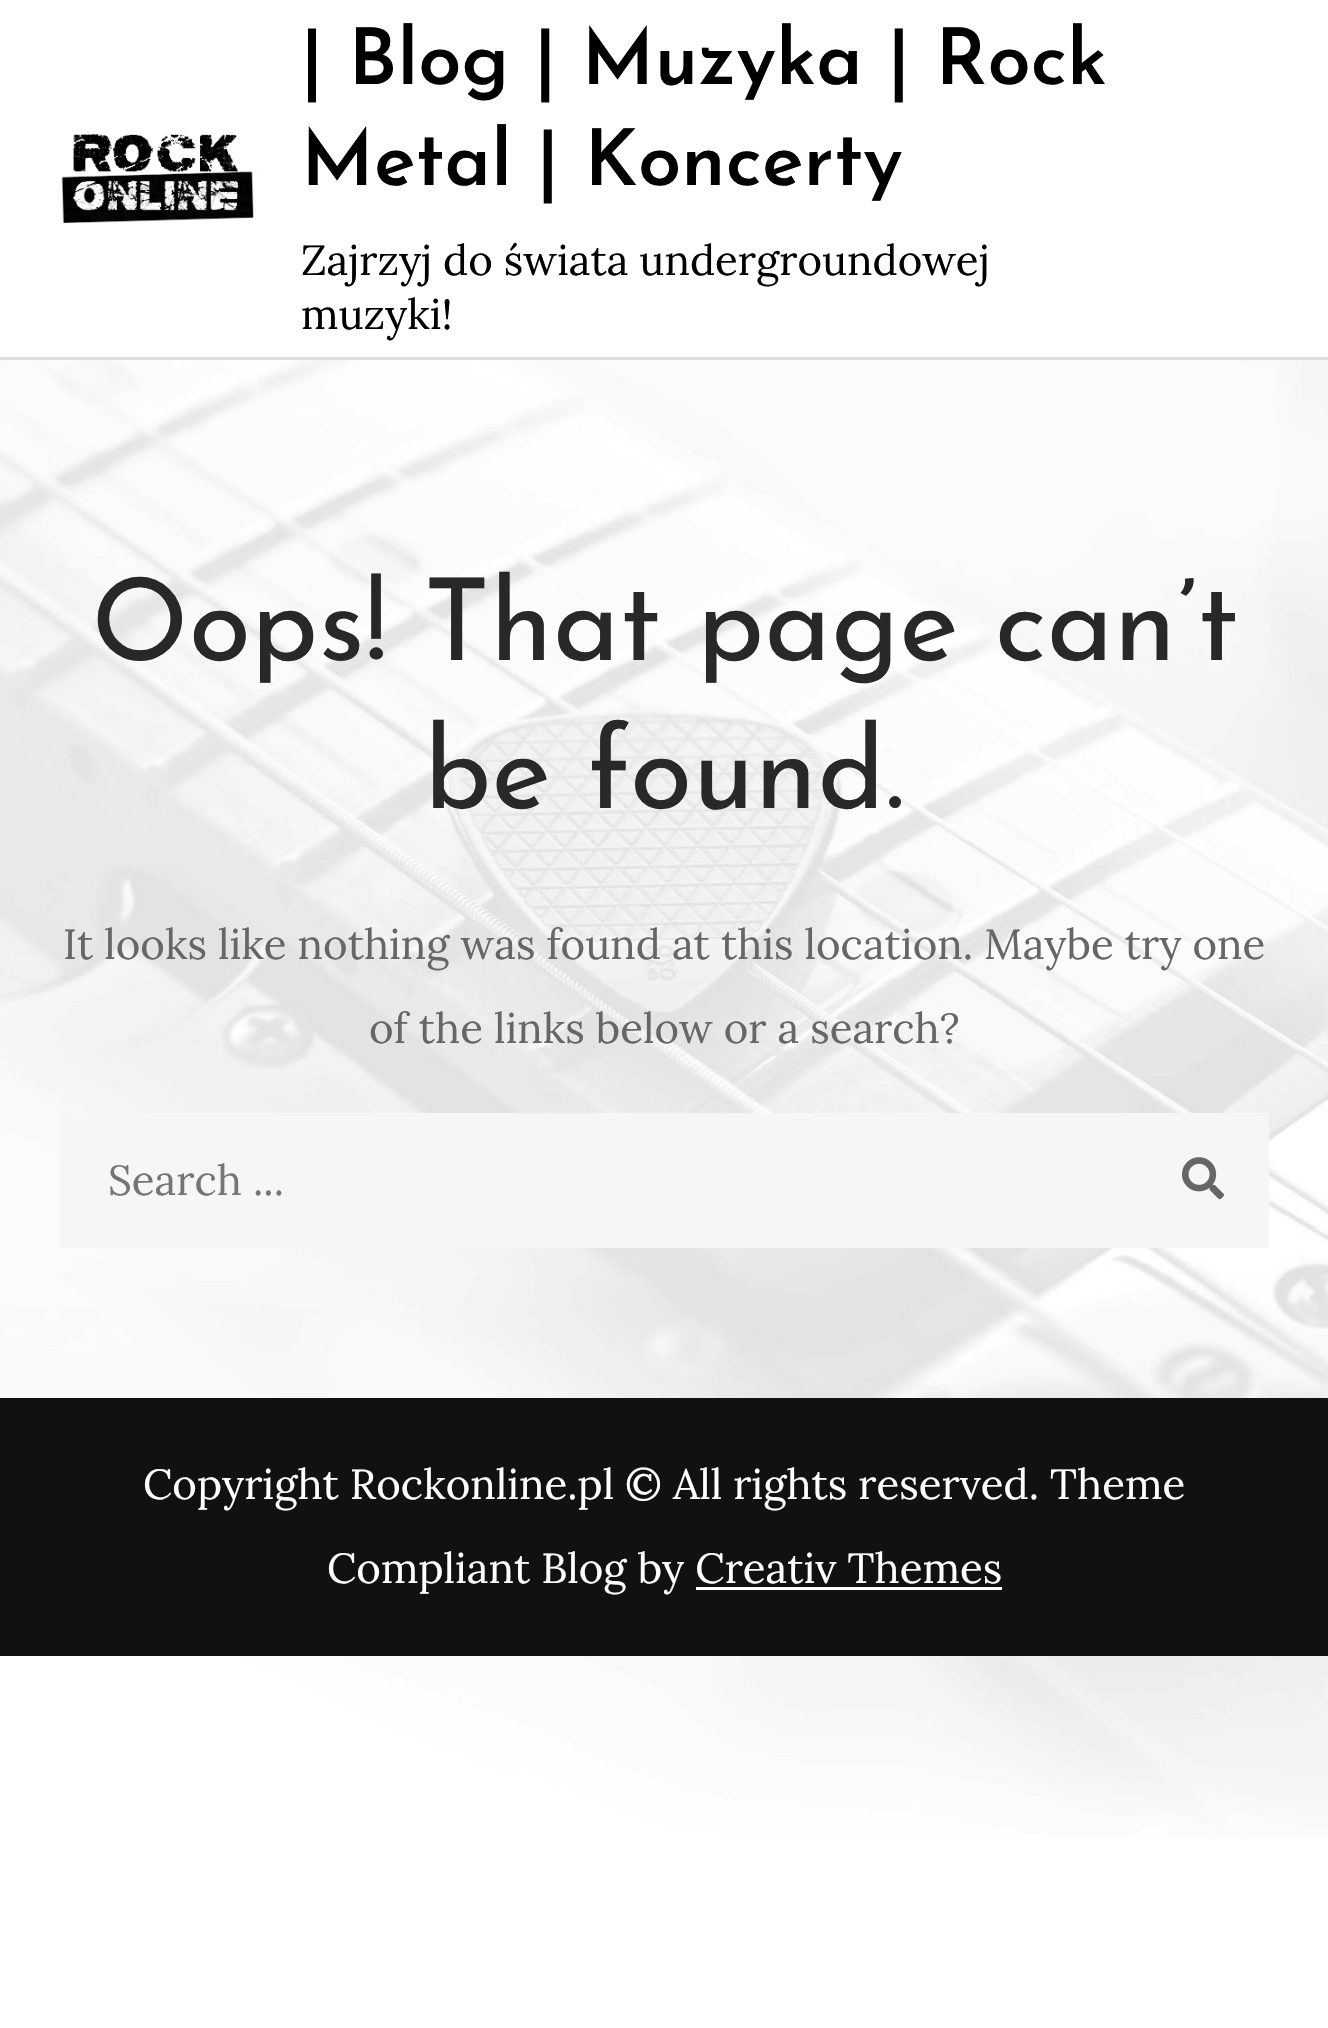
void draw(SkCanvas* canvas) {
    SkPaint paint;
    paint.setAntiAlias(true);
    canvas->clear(0xFFFFFFFF);
    canvas->drawImageRect(SkImages::DeferredFromEncodedData(SkData::MakeFromFileName("img1.png")), SkRect::MakeXYWH(0, 360, 1328, 1478), SkSamplingOptions());
    paint.setColor(0xFFDDDDDD);
    canvas->drawRect(SkRect::MakeXYWH(0, 357, 1328, 3), paint);
    canvas->drawImageRect(SkImages::DeferredFromEncodedData(SkData::MakeFromFileName("img2.png")), SkRect::MakeXYWH(61, 134, 193, 90), SkSamplingOptions());
    SkFont font1(fontMgr->matchFamilyStyle("Josefin Sans", SkFontStyle(600, SkFontStyle::kNormal_Width, SkFontStyle::kUpright_Slant)), 78);
    font1.setSubpixel(true);
    paint.setColor(0xFF000000);
    canvas->drawString("| Blog | Muzyka | Rock", 301, 84, font1, paint);
    canvas->drawString("Metal | Koncerty", 301, 185, font1, paint);
    SkFont font2(fontMgr->matchFamilyStyle("Lora", SkFontStyle::Normal()), 42);
    font2.setSubpixel(true);
    canvas->drawString("Zajrzyj do świata undergroundowej", 301, 275, font2, paint);
    canvas->drawString("muzyki!", 301, 329, font2, paint);
    SkFont font3(fontMgr->matchFamilyStyle("Josefin Sans", SkFontStyle::Normal()), 114);
    font3.setSubpixel(true);
    paint.setColor(0xFF282828);
    canvas->drawString("Oops! That page can’t", 91, 660, font3, paint);
    canvas->drawString("be found.", 424, 808, font3, paint);
    paint.setColor(0xFF666666);
    canvas->drawString("It looks like nothing was found at this location. Maybe try one", 63, 959, font2, paint);
    canvas->drawString("of the links below or a search?", 369, 1043, font2, paint);
    paint.setColor(0xFFF6F6F6);
    canvas->drawRect(SkRect::MakeXYWH(60, 1113, 1209, 135), paint);
    paint.setColor(0xFF757575);
    canvas->drawString("Search ...", 108, 1195, font2, paint);
    canvas->drawImageRect(SkImages::DeferredFromEncodedData(SkData::MakeFromFileName("img3.png")), SkRect::MakeXYWH(1182, 1157, 42, 43), SkSamplingOptions());
    paint.setColor(0xFF111111);
    canvas->drawRect(SkRect::MakeXYWH(0, 1398, 1328, 258), paint);
    paint.setColor(0xFFFFFFFF);
    canvas->drawString("Copyright Rockonline.pl © All rights reserved. Theme", 143, 1499, font2, paint);
    canvas->drawString("Compliant Blog by Creativ Themes", 327, 1583, font2, paint);
    canvas->drawRect(SkRect::MakeXYWH(696, 1587, 306, 3), paint);
}
